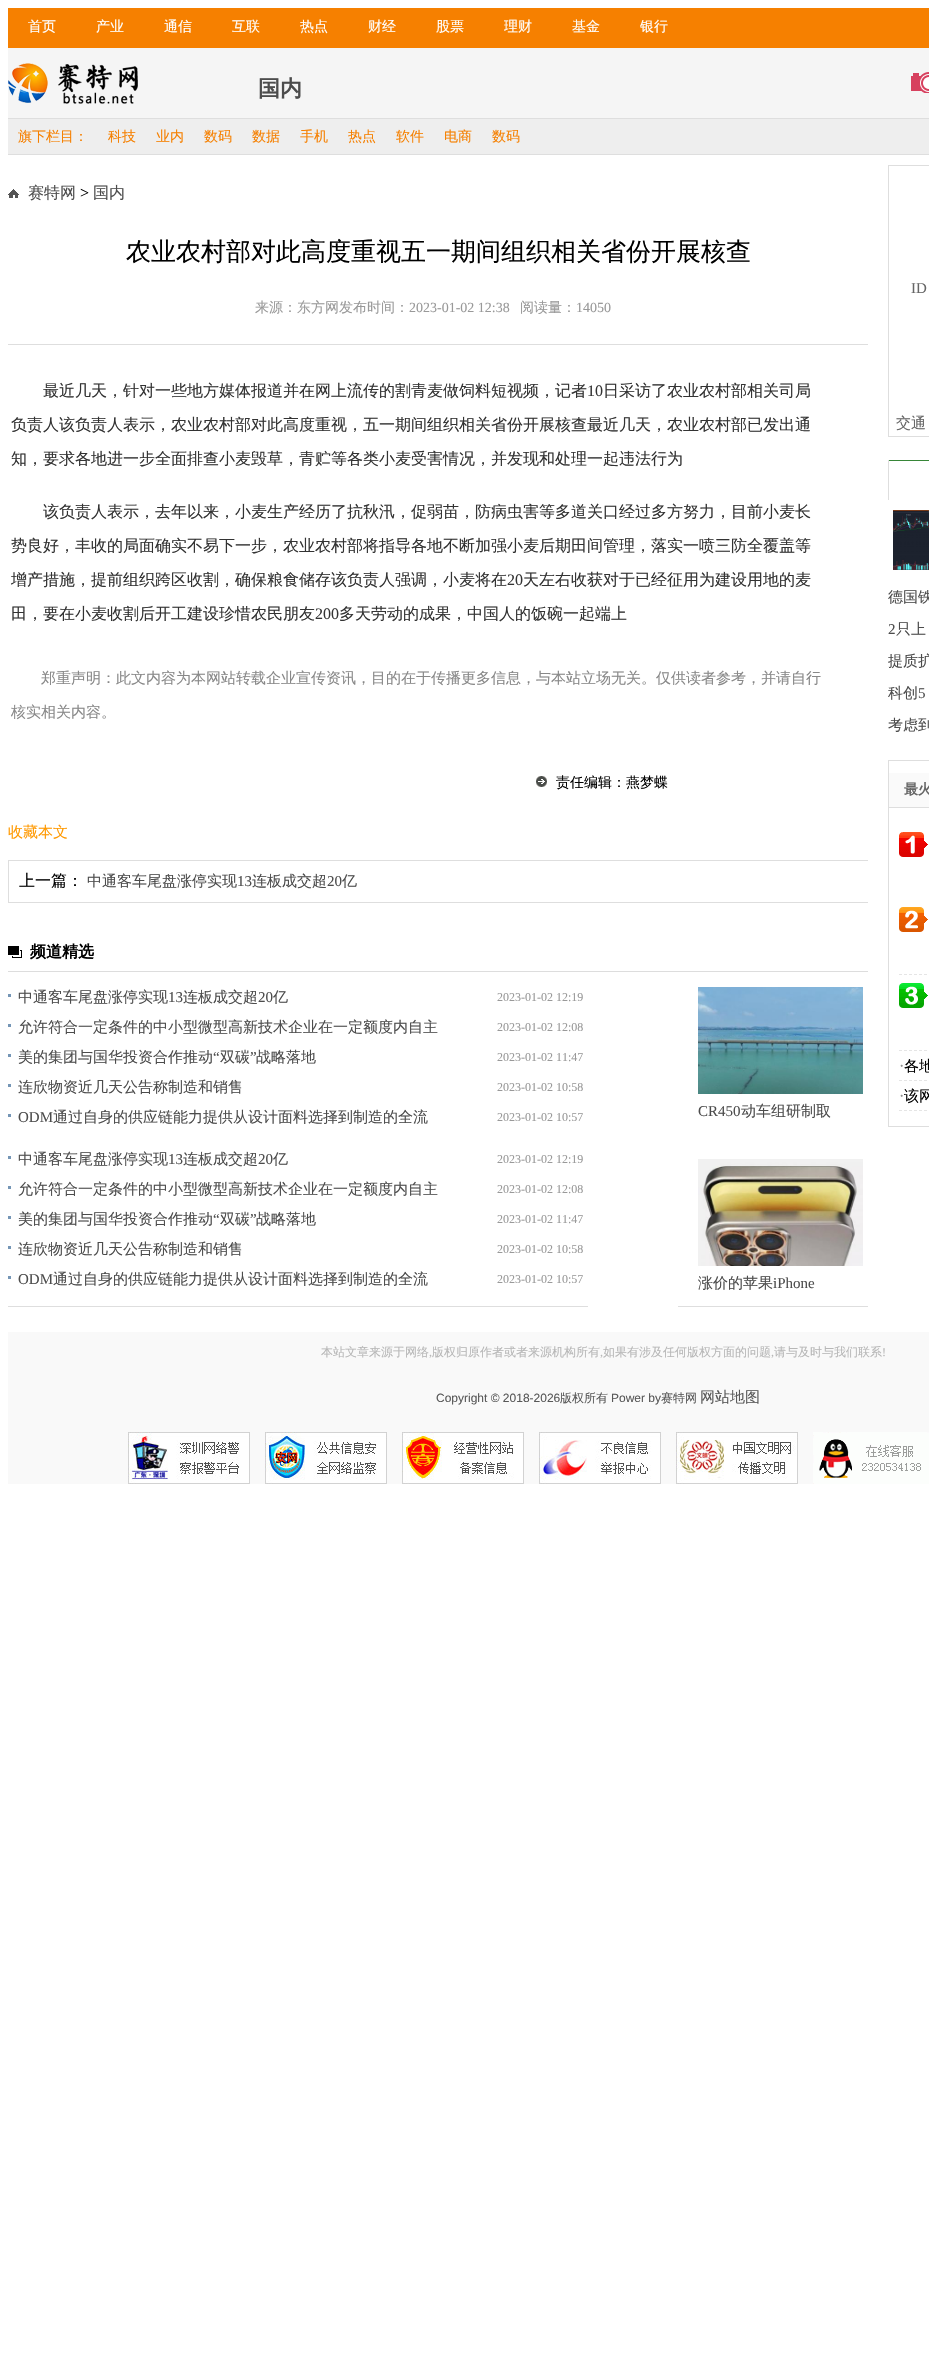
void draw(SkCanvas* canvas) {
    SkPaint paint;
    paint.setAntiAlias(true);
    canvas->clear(0xFFFFFFFF);
    paint.setColor(0xFFF68000);
    canvas->drawRect(SkRect::MakeXYWH(8, 8, 921, 40), paint);
    SkFont font1(fontMgr->matchFamilyStyle("WenQuanYi Zen Hei", SkFontStyle(500, SkFontStyle::kNormal_Width, SkFontStyle::kUpright_Slant)), 14);
    font1.setSubpixel(true);
    paint.setColor(0xFFFFFFFF);
    canvas->drawString("首页", 28, 31, font1, paint);
    canvas->drawString("产业", 96, 31, font1, paint);
    canvas->drawString("通信", 164, 31, font1, paint);
    canvas->drawString("互联", 232, 31, font1, paint);
    canvas->drawString("热点", 300, 31, font1, paint);
    canvas->drawString("财经", 368, 31, font1, paint);
    canvas->drawString("股票", 436, 31, font1, paint);
    canvas->drawString("理财", 504, 31, font1, paint);
    canvas->drawString("基金", 572, 31, font1, paint);
    canvas->drawString("银行", 640, 31, font1, paint);
    paint.setColor(0xFFF5F5F5);
    canvas->drawRect(SkRect::MakeXYWH(8, 48, 921, 70), paint);
    canvas->drawImageRect(SkImages::DeferredFromEncodedData(SkData::MakeFromFileName("img1.png")), SkRect::MakeXYWH(8, 63, 130, 41), SkSamplingOptions());
    SkFont font2(fontMgr->matchFamilyStyle("WenQuanYi Zen Hei", SkFontStyle::Bold()), 22);
    font2.setSubpixel(true);
    paint.setColor(0xFF4C4C4C);
    canvas->drawString("国内", 258, 96, font2, paint);
    canvas->drawImageRect(SkImages::DeferredFromEncodedData(SkData::MakeFromFileName("img2.png")), SkRect::MakeXYWH(911, 72, 18, 21), SkSamplingOptions());
    paint.setColor(0xFFEEEEEE);
    canvas->drawRect(SkRect::MakeXYWH(8, 119, 921, 35), paint);
    paint.setColor(0xFFDEDEDE);
    canvas->drawRect(SkRect::MakeXYWH(8, 118, 921, 1), paint);
    canvas->drawRect(SkRect::MakeXYWH(8, 154, 921, 1), paint);
    paint.setColor(0xFFF68000);
    canvas->drawString("旗下栏目：", 18, 141, font1, paint);
    canvas->drawString("科技", 108, 141, font1, paint);
    canvas->drawString("业内", 156, 141, font1, paint);
    canvas->drawString("数码", 204, 141, font1, paint);
    canvas->drawString("数据", 252, 141, font1, paint);
    canvas->drawString("手机", 300, 141, font1, paint);
    canvas->drawString("热点", 348, 141, font1, paint);
    canvas->drawString("软件", 396, 141, font1, paint);
    canvas->drawString("电商", 444, 141, font1, paint);
    canvas->drawString("数码", 492, 141, font1, paint);
    canvas->drawImageRect(SkImages::DeferredFromEncodedData(SkData::MakeFromFileName("img3.png")), SkRect::MakeXYWH(8, 189, 11, 9), SkSamplingOptions());
    SkFont font3(fontMgr->matchFamilyStyle("WenQuanYi Zen Hei", SkFontStyle(500, SkFontStyle::kNormal_Width, SkFontStyle::kUpright_Slant)), 16);
    font3.setSubpixel(true);
    paint.setColor(0xFF4C4C4C);
    canvas->drawString("赛特网", 28, 198, font3, paint);
    SkFont font4(fontMgr->matchFamilyStyle("Liberation Serif", SkFontStyle::Normal()), 16);
    font4.setSubpixel(true);
    paint.setColor(0xFF000000);
    canvas->drawString(">", 80, 198, font4, paint);
    paint.setColor(0xFF4C4C4C);
    canvas->drawString("国内", 93, 198, font3, paint);
    SkFont font5(fontMgr->matchFamilyStyle("WenQuanYi Zen Hei", SkFontStyle(500, SkFontStyle::kNormal_Width, SkFontStyle::kUpright_Slant)), 25);
    font5.setSubpixel(true);
    paint.setColor(0xFF000000);
    canvas->drawString("农业农村部对此高度重视五一期间组织相关省份开展核查", 126, 260, font5, paint);
    paint.setColor(0xFFDEDEDE);
    canvas->drawRect(SkRect::MakeXYWH(8, 344, 860, 1), paint);
    paint.setColor(0xFF999999);
    canvas->drawString("来源：东方网发布时间：", 255, 312, font1, paint);
    SkFont font6(fontMgr->matchFamilyStyle("Liberation Serif", SkFontStyle::Normal()), 14);
    font6.setSubpixel(true);
    canvas->drawString("2023-01-02 12:38", 409, 312, font6, paint);
    canvas->drawString("阅读量：", 520, 312, font1, paint);
    canvas->drawString("14050", 576, 312, font6, paint);
    paint.setColor(0xFF333333);
    canvas->drawString("最近几天，针对一些地方媒体报道并在网上流传的割青麦做饲料短视频，记者", 43, 396, font3, paint);
    canvas->drawString("10", 587, 396, font4, paint);
    canvas->drawString("日采访了农业农村部相关司局", 603, 396, font3, paint);
    canvas->drawString("负责人该负责人表示，农业农村部对此高度重视，五一期间组织相关省份开展核查最近几天，农业农村部已发出通", 11, 430, font3, paint);
    canvas->drawString("知，要求各地进一步全面排查小麦毁草，青贮等各类小麦受害情况，并发现和处理一起违法行为", 11, 464, font3, paint);
    canvas->drawString("该负责人表示，去年以来，小麦生产经历了抗秋汛，促弱苗，防病虫害等多道关口经过多方努力，目前小麦长", 43, 517, font3, paint);
    canvas->drawString("势良好，丰收的局面确实不易下一步，农业农村部将指导各地不断加强小麦后期田间管理，落实一喷三防全覆盖等", 11, 551, font3, paint);
    canvas->drawString("增产措施，提前组织跨区收割，确保粮食储存该负责人强调，小麦将在", 11, 585, font3, paint);
    canvas->drawString("20", 507, 585, font4, paint);
    canvas->drawString("天左右收获对于已经征用为建设用地的麦", 523, 585, font3, paint);
    canvas->drawString("田，要在小麦收割后开工建设珍惜农民朋友", 11, 619, font3, paint);
    canvas->drawString("200", 315, 619, font4, paint);
    canvas->drawString("多天劳动的成果，中国人的饭碗一起端上", 339, 619, font3, paint);
    SkFont font7(fontMgr->matchFamilyStyle("WenQuanYi Zen Hei", SkFontStyle(500, SkFontStyle::kNormal_Width, SkFontStyle::kUpright_Slant)), 15);
    font7.setSubpixel(true);
    paint.setColor(0xFF888888);
    canvas->drawString("郑重声明：此文内容为本网站转载企业宣传资讯，目的在于传播更多信息，与本站立场无关。仅供读者参考，并请自行", 41, 683, font7, paint);
    canvas->drawString("核实相关内容。", 11, 717, font7, paint);
    canvas->drawImageRect(SkImages::DeferredFromEncodedData(SkData::MakeFromFileName("img4.png")), SkRect::MakeXYWH(536, 776, 11, 11), SkSamplingOptions());
    paint.setColor(0xFF000000);
    canvas->drawString("责任编辑：燕梦蝶", 556, 787, font1, paint);
    paint.setColor(0xFFFF9900);
    canvas->drawString("收藏本文", 8, 837, font7, paint);
    canvas->save();
    canvas->clipRect(SkRect::MakeXYWH(8, 155, 860, 1162));
    paint.setStyle(SkPaint::kStroke_Style);
    paint.setStrokeWidth(1);
    paint.setColor(0xFFDEDEDE);
    canvas->drawRect(SkRect::MakeXYWH(8.5f, 860.5f, 881, 42), paint);
    canvas->restore();
    paint.setStyle(SkPaint::kFill_Style);
    paint.setColor(0xFF000000);
    canvas->drawString("上一篇：", 19, 886, font3, paint);
    paint.setColor(0xFF4C4C4C);
    canvas->drawString("中通客车尾盘涨停实现", 87, 886, font7, paint);
    SkFont font8(fontMgr->matchFamilyStyle("Liberation Serif", SkFontStyle::Normal()), 15);
    font8.setSubpixel(true);
    canvas->drawString("13", 237, 886, font8, paint);
    canvas->drawString("连板成交超", 252, 886, font7, paint);
    canvas->drawString("20", 327, 886, font8, paint);
    canvas->drawString("亿", 342, 886, font7, paint);
    paint.setColor(0xFFDDDDDD);
    canvas->drawRect(SkRect::MakeXYWH(8, 971, 860, 1), paint);
    canvas->drawImageRect(SkImages::DeferredFromEncodedData(SkData::MakeFromFileName("img5.png")), SkRect::MakeXYWH(8, 946, 14, 12), SkSamplingOptions());
    SkFont font9(fontMgr->matchFamilyStyle("WenQuanYi Zen Hei", SkFontStyle::Bold()), 16);
    font9.setSubpixel(true);
    paint.setColor(0xFF000000);
    canvas->drawString("频道精选", 30, 957, font9, paint);
    paint.setColor(0xFFDEDEDE);
    canvas->drawRect(SkRect::MakeXYWH(8, 1306, 580, 1), paint);
    paint.setColor(0xFF7596B6);
    canvas->drawRect(SkRect::MakeXYWH(8, 994, 3, 3), paint);
    paint.setColor(0xFF4C4C4C);
    canvas->drawString("中通客车尾盘涨停实现", 18, 1002, font7, paint);
    canvas->drawString("13", 168, 1002, font8, paint);
    canvas->drawString("连板成交超", 183, 1002, font7, paint);
    canvas->drawString("20", 258, 1002, font8, paint);
    canvas->drawString("亿", 273, 1002, font7, paint);
    SkFont font10(fontMgr->matchFamilyStyle("Liberation Serif", SkFontStyle::Normal()), 12);
    font10.setSubpixel(true);
    paint.setColor(0xFF999999);
    canvas->drawString("2023-01-02 12:19", 497, 1001, font10, paint);
    paint.setColor(0xFF7596B6);
    canvas->drawRect(SkRect::MakeXYWH(8, 1024, 3, 3), paint);
    paint.setColor(0xFF4C4C4C);
    canvas->drawString("允许符合一定条件的中小型微型高新技术企业在一定额度内自主", 18, 1032, font7, paint);
    paint.setColor(0xFF999999);
    canvas->drawString("2023-01-02 12:08", 497, 1031, font10, paint);
    paint.setColor(0xFF7596B6);
    canvas->drawRect(SkRect::MakeXYWH(8, 1054, 3, 3), paint);
    paint.setColor(0xFF4C4C4C);
    canvas->drawString("美的集团与国华投资合作推动", 18, 1062, font7, paint);
    canvas->drawString("“", 213, 1062, font8, paint);
    canvas->drawString("双碳", 220, 1062, font7, paint);
    canvas->drawString("”", 250, 1062, font8, paint);
    canvas->drawString("战略落地", 256, 1062, font7, paint);
    paint.setColor(0xFF999999);
    canvas->drawString("2023-01-02 11:47", 497, 1061, font10, paint);
    paint.setColor(0xFF7596B6);
    canvas->drawRect(SkRect::MakeXYWH(8, 1084, 3, 3), paint);
    paint.setColor(0xFF4C4C4C);
    canvas->drawString("连欣物资近几天公告称制造和销售", 18, 1092, font7, paint);
    paint.setColor(0xFF999999);
    canvas->drawString("2023-01-02 10:58", 497, 1091, font10, paint);
    paint.setColor(0xFF7596B6);
    canvas->drawRect(SkRect::MakeXYWH(8, 1114, 3, 3), paint);
    paint.setColor(0xFF4C4C4C);
    canvas->drawString("ODM", 18, 1122, font8, paint);
    canvas->drawString("通过自身的供应链能力提供从设计面料选择到制造的全流", 53, 1122, font7, paint);
    paint.setColor(0xFF999999);
    canvas->drawString("2023-01-02 10:57", 497, 1121, font10, paint);
    paint.setColor(0xFF7596B6);
    canvas->drawRect(SkRect::MakeXYWH(8, 1156, 3, 3), paint);
    paint.setColor(0xFF4C4C4C);
    canvas->drawString("中通客车尾盘涨停实现", 18, 1164, font7, paint);
    canvas->drawString("13", 168, 1164, font8, paint);
    canvas->drawString("连板成交超", 183, 1164, font7, paint);
    canvas->drawString("20", 258, 1164, font8, paint);
    canvas->drawString("亿", 273, 1164, font7, paint);
    paint.setColor(0xFF999999);
    canvas->drawString("2023-01-02 12:19", 497, 1163, font10, paint);
    paint.setColor(0xFF7596B6);
    canvas->drawRect(SkRect::MakeXYWH(8, 1186, 3, 3), paint);
    paint.setColor(0xFF4C4C4C);
    canvas->drawString("允许符合一定条件的中小型微型高新技术企业在一定额度内自主", 18, 1194, font7, paint);
    paint.setColor(0xFF999999);
    canvas->drawString("2023-01-02 12:08", 497, 1193, font10, paint);
    paint.setColor(0xFF7596B6);
    canvas->drawRect(SkRect::MakeXYWH(8, 1216, 3, 3), paint);
    paint.setColor(0xFF4C4C4C);
    canvas->drawString("美的集团与国华投资合作推动", 18, 1224, font7, paint);
    canvas->drawString("“", 213, 1224, font8, paint);
    canvas->drawString("双碳", 220, 1224, font7, paint);
    canvas->drawString("”", 250, 1224, font8, paint);
    canvas->drawString("战略落地", 256, 1224, font7, paint);
    paint.setColor(0xFF999999);
    canvas->drawString("2023-01-02 11:47", 497, 1223, font10, paint);
    paint.setColor(0xFF7596B6);
    canvas->drawRect(SkRect::MakeXYWH(8, 1246, 3, 3), paint);
    paint.setColor(0xFF4C4C4C);
    canvas->drawString("连欣物资近几天公告称制造和销售", 18, 1254, font7, paint);
    paint.setColor(0xFF999999);
    canvas->drawString("2023-01-02 10:58", 497, 1253, font10, paint);
    paint.setColor(0xFF7596B6);
    canvas->drawRect(SkRect::MakeXYWH(8, 1276, 3, 3), paint);
    paint.setColor(0xFF4C4C4C);
    canvas->drawString("ODM", 18, 1284, font8, paint);
    canvas->drawString("通过自身的供应链能力提供从设计面料选择到制造的全流", 53, 1284, font7, paint);
    paint.setColor(0xFF999999);
    canvas->drawString("2023-01-02 10:57", 497, 1283, font10, paint);
    paint.setColor(0xFFDEDEDE);
    canvas->drawRect(SkRect::MakeXYWH(678, 1306, 190, 1), paint);
    canvas->drawImageRect(SkImages::DeferredFromEncodedData(SkData::MakeFromFileName("img6.png")), SkRect::MakeXYWH(698, 987, 165, 107), SkSamplingOptions());
    paint.setColor(0xFF4C4C4C);
    canvas->drawString("CR450", 698, 1116, font8, paint);
    canvas->drawString("动车组研制取", 741, 1116, font7, paint);
    canvas->drawImageRect(SkImages::DeferredFromEncodedData(SkData::MakeFromFileName("img7.png")), SkRect::MakeXYWH(698, 1159, 165, 107), SkSamplingOptions());
    canvas->drawString("涨价的苹果", 698, 1288, font7, paint);
    canvas->drawString("iPhone", 773, 1288, font8, paint);
    paint.setStyle(SkPaint::kStroke_Style);
    paint.setColor(0xFFDEDEDE);
    canvas->drawRect(SkRect::MakeXYWH(888.5f, 165.5f, 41, 271), paint);
    paint.setStyle(SkPaint::kFill_Style);
    paint.setColor(0xFF666666);
    canvas->drawString("ID", 911, 293, font8, paint);
    canvas->drawString("交通", 896, 428, font7, paint);
    paint.setColor(0xFFDEDEDE);
    canvas->drawRect(SkRect::MakeXYWH(888, 460, 1, 40), paint);
    paint.setColor(0xFF378638);
    canvas->drawRect(SkRect::MakeXYWH(889, 460, 40, 1), paint);
    canvas->drawImageRect(SkImages::DeferredFromEncodedData(SkData::MakeFromFileName("img8.png")), SkRect::MakeXYWH(893, 510, 36, 60), SkSamplingOptions());
    paint.setColor(0xFF4C4C4C);
    canvas->drawString("德国铁", 888, 602, font7, paint);
    canvas->drawString("2", 888, 634, font8, paint);
    canvas->drawString("只上", 896, 634, font7, paint);
    canvas->drawString("提质扩", 888, 666, font7, paint);
    canvas->drawString("科创", 888, 698, font7, paint);
    canvas->drawString("5", 918, 698, font8, paint);
    canvas->drawString("考虑到", 888, 730, font7, paint);
    paint.setStyle(SkPaint::kStroke_Style);
    paint.setColor(0xFFDEDEDE);
    canvas->drawRect(SkRect::MakeXYWH(888.5f, 760.5f, 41, 366), paint);
    paint.setStyle(SkPaint::kFill_Style);
    paint.setColor(0xFFFAFAFA);
    canvas->drawRect(SkRect::MakeXYWH(889, 773, 40, 34), paint);
    paint.setColor(0xFFDEDEDE);
    canvas->drawRect(SkRect::MakeXYWH(889, 807, 40, 1), paint);
    SkFont font11(fontMgr->matchFamilyStyle("WenQuanYi Zen Hei", SkFontStyle::Bold()), 14);
    font11.setSubpixel(true);
    paint.setColor(0xFF666666);
    canvas->drawString("最火", 904, 794, font11, paint);
    canvas->drawImageRect(SkImages::DeferredFromEncodedData(SkData::MakeFromFileName("img9.png")), SkRect::MakeXYWH(899, 832, 29, 25), SkSamplingOptions());
    canvas->drawImageRect(SkImages::DeferredFromEncodedData(SkData::MakeFromFileName("img10.png")), SkRect::MakeXYWH(899, 907, 29, 25), SkSamplingOptions());
    paint.setStyle(SkPaint::kStroke_Style);
    paint.setColor(0xFFE5E5E5);
    paint.setPathEffect(SkDashPathEffect::Make({{3, 2}}, 0));
    canvas->drawPath(SkPathBuilder().moveTo(899, 974.5f).lineTo(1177, 974.5f).detach(), paint);
    paint.setPathEffect(nullptr);
    canvas->drawImageRect(SkImages::DeferredFromEncodedData(SkData::MakeFromFileName("img11.png")), SkRect::MakeXYWH(899, 983, 29, 25), SkSamplingOptions());
    paint.setPathEffect(SkDashPathEffect::Make({{3, 2}}, 0));
    canvas->drawPath(SkPathBuilder().moveTo(899, 1050.5f).lineTo(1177, 1050.5f).moveTo(899, 1080.5f).lineTo(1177, 1080.5f).detach(), paint);
    paint.setPathEffect(nullptr);
    paint.setStyle(SkPaint::kFill_Style);
    paint.setColor(0xFF8E8E8E);
    canvas->drawString("·", 899, 1071, font4, paint);
    paint.setColor(0xFF000000);
    canvas->drawString("各地", 904, 1071, font7, paint);
    paint.setStyle(SkPaint::kStroke_Style);
    paint.setColor(0xFFE5E5E5);
    paint.setPathEffect(SkDashPathEffect::Make({{3, 2}}, 0));
    canvas->drawPath(SkPathBuilder().moveTo(899, 1110.5f).lineTo(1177, 1110.5f).detach(), paint);
    paint.setPathEffect(nullptr);
    paint.setStyle(SkPaint::kFill_Style);
    paint.setColor(0xFF8E8E8E);
    canvas->drawString("·", 899, 1101, font4, paint);
    paint.setColor(0xFF000000);
    canvas->drawString("该网", 904, 1101, font7, paint);
    paint.setColor(0xFFF9F9F9);
    canvas->drawRect(SkRect::MakeXYWH(8, 1332, 921, 100), paint);
    SkFont font12(fontMgr->matchFamilyStyle("WenQuanYi Zen Hei", SkFontStyle(500, SkFontStyle::kNormal_Width, SkFontStyle::kUpright_Slant)), 12);
    font12.setSubpixel(true);
    paint.setColor(0xFFB7B7B7);
    canvas->drawString("本站文章来源于网络", 321, 1356, font12, paint);
    canvas->drawString(",", 429, 1356, font10, paint);
    canvas->drawString("版权归原作者或者来源机构所有", 432, 1356, font12, paint);
    canvas->drawString(",", 600, 1356, font10, paint);
    canvas->drawString("如果有涉及任何版权方面的问题", 603, 1356, font12, paint);
    canvas->drawString(",", 771, 1356, font10, paint);
    canvas->drawString("请与及时与我们联系", 774, 1356, font12, paint);
    canvas->drawString("!", 882, 1356, font10, paint);
    SkFont font13(fontMgr->matchFamilyStyle("Liberation Sans", SkFontStyle::Normal()), 12);
    font13.setSubpixel(true);
    paint.setColor(0xFF585858);
    canvas->drawString("Copyright © 2018-2026", 436, 1402, font13, paint);
    canvas->drawString("版权所有", 560, 1402, font12, paint);
    canvas->drawString("Power by", 611, 1402, font13, paint);
    canvas->drawString("赛特网", 661, 1402, font12, paint);
    canvas->drawString("网站地图", 700, 1402, font7, paint);
    paint.setColor(0xFFF9F9F9);
    canvas->drawRect(SkRect::MakeXYWH(8, 1432, 805, 52), paint);
    canvas->drawImageRect(SkImages::DeferredFromEncodedData(SkData::MakeFromFileName("img12.png")), SkRect::MakeXYWH(128, 1432, 122, 52), SkSamplingOptions());
    canvas->drawImageRect(SkImages::DeferredFromEncodedData(SkData::MakeFromFileName("img13.png")), SkRect::MakeXYWH(265, 1432, 122, 52), SkSamplingOptions());
    canvas->drawImageRect(SkImages::DeferredFromEncodedData(SkData::MakeFromFileName("img14.png")), SkRect::MakeXYWH(402, 1432, 122, 52), SkSamplingOptions());
    canvas->drawImageRect(SkImages::DeferredFromEncodedData(SkData::MakeFromFileName("img15.png")), SkRect::MakeXYWH(539, 1432, 122, 52), SkSamplingOptions());
    canvas->drawImageRect(SkImages::DeferredFromEncodedData(SkData::MakeFromFileName("img16.png")), SkRect::MakeXYWH(676, 1432, 122, 52), SkSamplingOptions());
    canvas->drawImageRect(SkImages::DeferredFromEncodedData(SkData::MakeFromFileName("img17.png")), SkRect::MakeXYWH(813, 1432, 116, 52), SkSamplingOptions());
}
